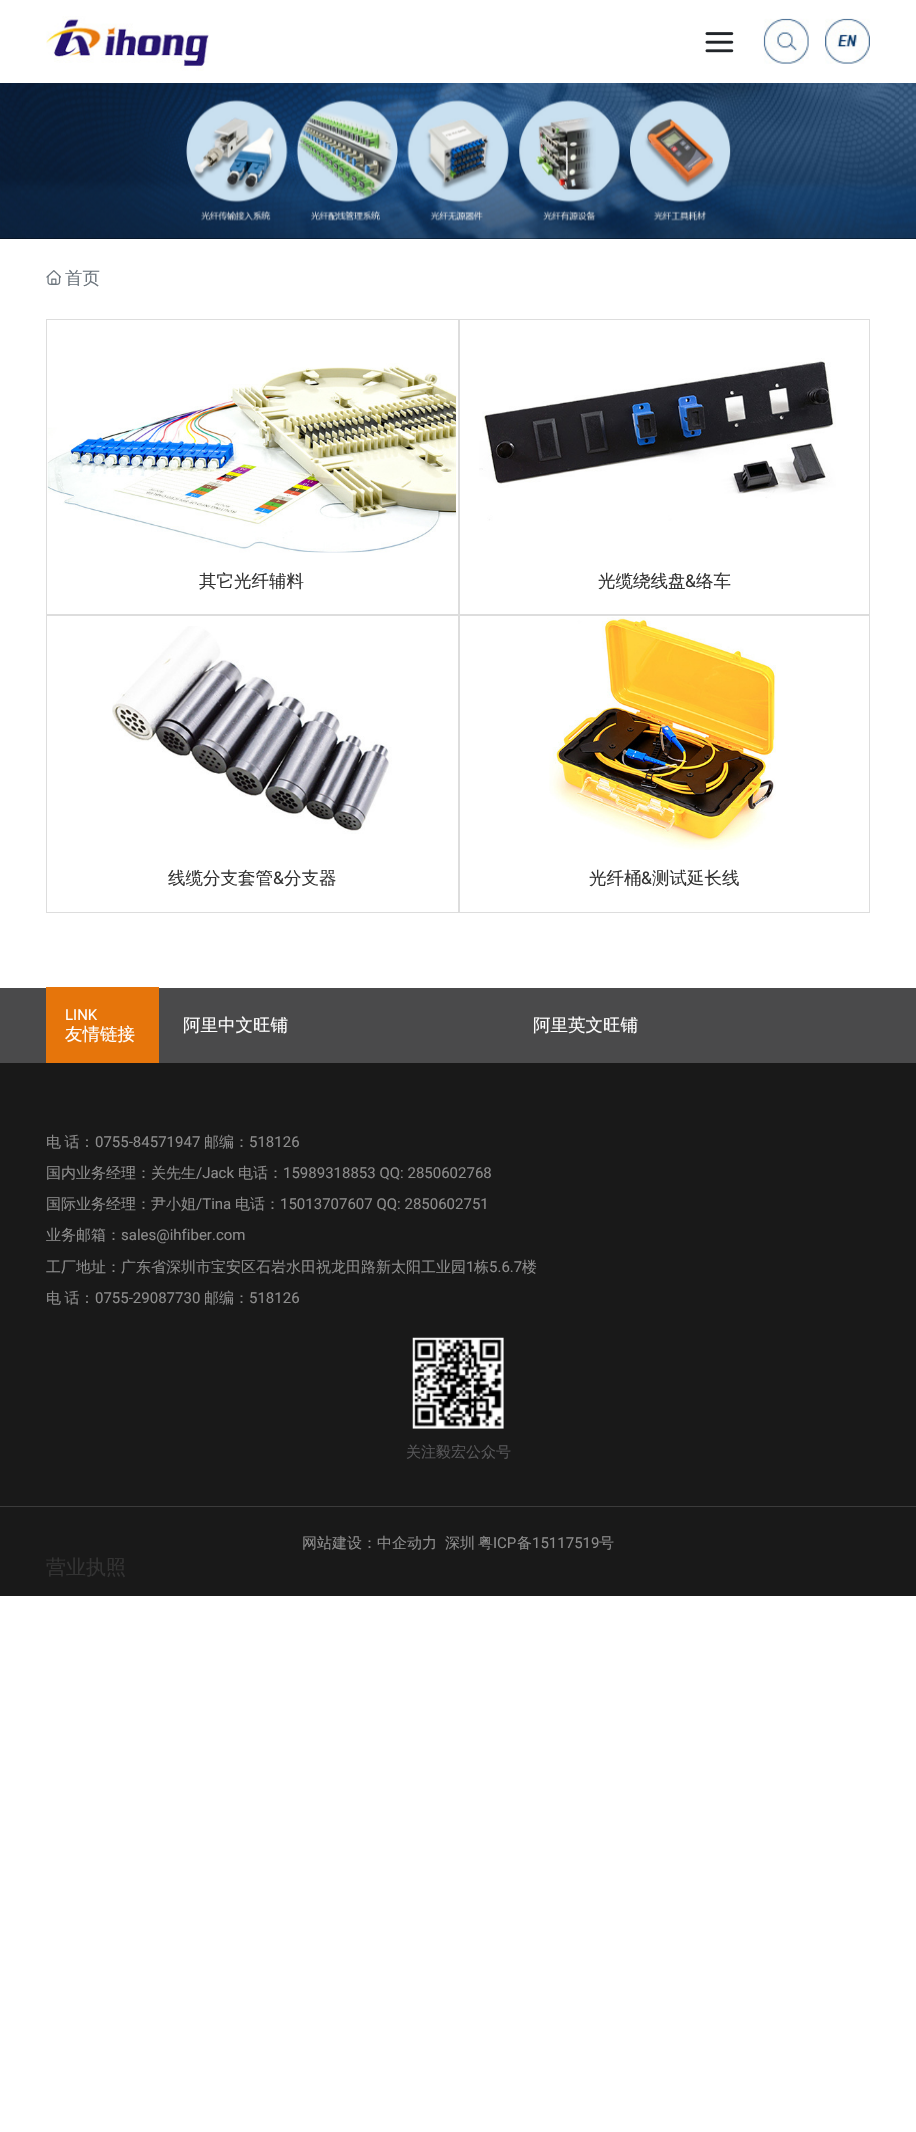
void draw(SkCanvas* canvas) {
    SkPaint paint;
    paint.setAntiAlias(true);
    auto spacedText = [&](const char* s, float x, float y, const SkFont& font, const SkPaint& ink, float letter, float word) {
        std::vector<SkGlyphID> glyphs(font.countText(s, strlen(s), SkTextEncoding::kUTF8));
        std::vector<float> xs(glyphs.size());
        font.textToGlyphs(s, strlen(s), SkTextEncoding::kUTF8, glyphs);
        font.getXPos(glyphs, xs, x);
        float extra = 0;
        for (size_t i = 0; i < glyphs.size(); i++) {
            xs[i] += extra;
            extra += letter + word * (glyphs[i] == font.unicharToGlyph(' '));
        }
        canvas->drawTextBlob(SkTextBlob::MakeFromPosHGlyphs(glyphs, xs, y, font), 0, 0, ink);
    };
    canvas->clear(0xFFFFFFFF);
    canvas->drawImageRect(SkImages::DeferredFromEncodedData(SkData::MakeFromFileName("img1.png")), SkRect::MakeXYWH(46, 16, 163, 55), SkSamplingOptions());
    canvas->drawImageRect(SkImages::DeferredFromEncodedData(SkData::MakeFromFileName("img2.png")), SkRect::MakeXYWH(705, 32, 29, 21), SkSamplingOptions());
    canvas->drawImageRect(SkImages::DeferredFromEncodedData(SkData::MakeFromFileName("img3.png")), SkRect::MakeXYWH(763, 18, 46, 46), SkSamplingOptions());
    canvas->drawImageRect(SkImages::DeferredFromEncodedData(SkData::MakeFromFileName("img4.png")), SkRect::MakeXYWH(825, 18, 45, 46), SkSamplingOptions());
    paint.setColor(0xFF000000);
    canvas->drawRect(SkRect::MakeXYWH(0, 238, 916, 1), paint);
    canvas->drawImageRect(SkImages::DeferredFromEncodedData(SkData::MakeFromFileName("img5.png")), SkRect::MakeXYWH(0, 83, 916, 156), SkSamplingOptions());
    canvas->drawImageRect(SkImages::DeferredFromEncodedData(SkData::MakeFromFileName("img6.png")), SkRect::MakeXYWH(46, 270, 15, 15), SkSamplingOptions());
    SkFont font1(fontMgr->matchFamilyStyle("WenQuanYi Zen Hei", SkFontStyle(500, SkFontStyle::kNormal_Width, SkFontStyle::kUpright_Slant)), 17.5f);
    font1.setSubpixel(true);
    paint.setColor(0xFF6C757D);
    canvas->drawString("首页", 65, 284, font1, paint);
    paint.setStyle(SkPaint::kStroke_Style);
    paint.setStrokeWidth(1);
    paint.setColor(0xFFDDDDDD);
    canvas->drawRect(SkRect::MakeXYWH(46.5f, 319.5f, 412, 295), paint);
    canvas->drawImageRect(SkImages::DeferredFromEncodedData(SkData::MakeFromFileName("img7.png")), SkRect::MakeXYWH(47, 363, 410, 190), SkSamplingOptions());
    paint.setStyle(SkPaint::kFill_Style);
    paint.setColor(0xFF333333);
    canvas->drawString("其它光纤辅料", 199, 587, font1, paint);
    paint.setStyle(SkPaint::kStroke_Style);
    paint.setColor(0xFFDDDDDD);
    canvas->drawRect(SkRect::MakeXYWH(459.5f, 319.5f, 410, 295), paint);
    canvas->drawImageRect(SkImages::DeferredFromEncodedData(SkData::MakeFromFileName("img8.png")), SkRect::MakeXYWH(479, 358, 357, 163), SkSamplingOptions());
    paint.setStyle(SkPaint::kFill_Style);
    paint.setColor(0xFF333333);
    canvas->drawString("光缆绕线盘", 598, 587, font1, paint);
    SkFont font2(fontMgr->matchFamilyStyle("Roboto", SkFontStyle::Normal()), 17.5f);
    font2.setSubpixel(true);
    canvas->drawString("&", 685, 587, font2, paint);
    canvas->drawString("络车", 696, 587, font1, paint);
    paint.setStyle(SkPaint::kStroke_Style);
    paint.setColor(0xFFDDDDDD);
    canvas->drawRect(SkRect::MakeXYWH(46.5f, 615.5f, 412, 297), paint);
    canvas->drawImageRect(SkImages::DeferredFromEncodedData(SkData::MakeFromFileName("img9.png")), SkRect::MakeXYWH(112, 626, 280, 208), SkSamplingOptions());
    paint.setStyle(SkPaint::kFill_Style);
    paint.setColor(0xFF333333);
    canvas->drawString("线缆分支套管", 168, 884, font1, paint);
    canvas->drawString("&", 273, 884, font2, paint);
    canvas->drawString("分支器", 284, 884, font1, paint);
    paint.setStyle(SkPaint::kStroke_Style);
    paint.setColor(0xFFDDDDDD);
    canvas->drawRect(SkRect::MakeXYWH(459.5f, 615.5f, 410, 297), paint);
    canvas->drawImageRect(SkImages::DeferredFromEncodedData(SkData::MakeFromFileName("img10.png")), SkRect::MakeXYWH(549, 617, 227, 233), SkSamplingOptions());
    paint.setStyle(SkPaint::kFill_Style);
    paint.setColor(0xFF333333);
    canvas->drawString("光纤桶", 589, 884, font1, paint);
    canvas->drawString("&", 641, 884, font2, paint);
    canvas->drawString("测试延长线", 652, 884, font1, paint);
    paint.setColor(0xFF191919);
    canvas->drawRect(SkRect::MakeXYWH(0, 1063, 916, 533), paint);
    paint.setColor(0xFF4A4A4B);
    canvas->drawRect(SkRect::MakeXYWH(0, 988, 916, 75), paint);
    paint.setColor(0xFFE6750B);
    canvas->drawRect(SkRect::MakeXYWH(46, 987, 113, 76), paint);
    SkFont font3(fontMgr->matchFamilyStyle("Roboto", SkFontStyle::Normal()), 15);
    font3.setSubpixel(true);
    paint.setColor(0xFFFFFFFF);
    canvas->drawString("LINK", 65, 1020, font3, paint);
    canvas->drawString("友情链接", 65, 1040, font1, paint);
    canvas->drawString("阿里中文旺铺", 183, 1031, font1, paint);
    canvas->drawString("阿里英文旺铺", 533, 1031, font1, paint);
    SkFont font4(fontMgr->matchFamilyStyle("WenQuanYi Zen Hei", SkFontStyle(500, SkFontStyle::kNormal_Width, SkFontStyle::kUpright_Slant)), 15);
    font4.setSubpixel(true);
    paint.setColor(0xFF8C8C8C);
    spacedText("电 话：", 46, 1147, font4, paint, 0, -1);
    canvas->drawString("0755-84571947", 95, 1147, font3, paint);
    canvas->drawString("邮编：", 204, 1147, font4, paint);
    canvas->drawString("518126", 249, 1147, font3, paint);
    canvas->drawString("国内业务经理：关先生", 46, 1178, font4, paint);
    canvas->drawString("/Jack", 196, 1178, font3, paint);
    canvas->drawString("电话：", 238, 1178, font4, paint);
    canvas->drawString("15989318853 QQ: 2850602768", 283, 1178, font3, paint);
    canvas->drawString("国际业务经理：尹小姐", 46, 1209, font4, paint);
    canvas->drawString("/Tina", 196, 1209, font3, paint);
    canvas->drawString("电话：", 235, 1209, font4, paint);
    canvas->drawString("15013707607 QQ: 2850602751", 280, 1209, font3, paint);
    canvas->drawString("业务邮箱：", 46, 1240, font4, paint);
    canvas->drawString("sales@ihfiber.com", 121, 1240, font3, paint);
    canvas->drawString("工厂地址：广东省深圳市宝安区石岩水田祝龙田路新太阳工业园", 46, 1272, font4, paint);
    canvas->drawString("1", 466, 1272, font3, paint);
    canvas->drawString("栋", 474, 1272, font4, paint);
    canvas->drawString("5.6.7", 489, 1272, font3, paint);
    canvas->drawString("楼", 522, 1272, font4, paint);
    spacedText("电 话：", 46, 1303, font4, paint, 0, -1);
    canvas->drawString("0755-29087730", 95, 1303, font3, paint);
    canvas->drawString("邮编：", 204, 1303, font4, paint);
    canvas->drawString("518126", 249, 1303, font3, paint);
    canvas->drawImageRect(SkImages::DeferredFromEncodedData(SkData::MakeFromFileName("img11.png")), SkRect::MakeXYWH(412, 1337, 92, 92), SkSamplingOptions());
    paint.setColor(0xFF565658);
    canvas->drawString("关注毅宏公众号", 406, 1457, font4, paint);
    paint.setColor(0xFF3B3B3B);
    canvas->drawRect(SkRect::MakeXYWH(0, 1506, 916, 1), paint);
    paint.setColor(0xFF8C8C8C);
    canvas->drawString("网站建设：中企动力", 302, 1548, font4, paint);
    canvas->drawString("深圳", 445, 1548, font4, paint);
    canvas->drawString("粤", 478, 1548, font4, paint);
    canvas->drawString("ICP", 493, 1548, font3, paint);
    canvas->drawString("备", 517, 1548, font4, paint);
    canvas->drawString("15117519", 532, 1548, font3, paint);
    canvas->drawString("号", 599, 1548, font4, paint);
    SkFont font5(fontMgr->matchFamilyStyle("WenQuanYi Zen Hei", SkFontStyle(500, SkFontStyle::kNormal_Width, SkFontStyle::kUpright_Slant)), 20);
    font5.setSubpixel(true);
    paint.setColor(0xFF333333);
    canvas->drawString("营业执照", 46, 1574, font5, paint);
}
